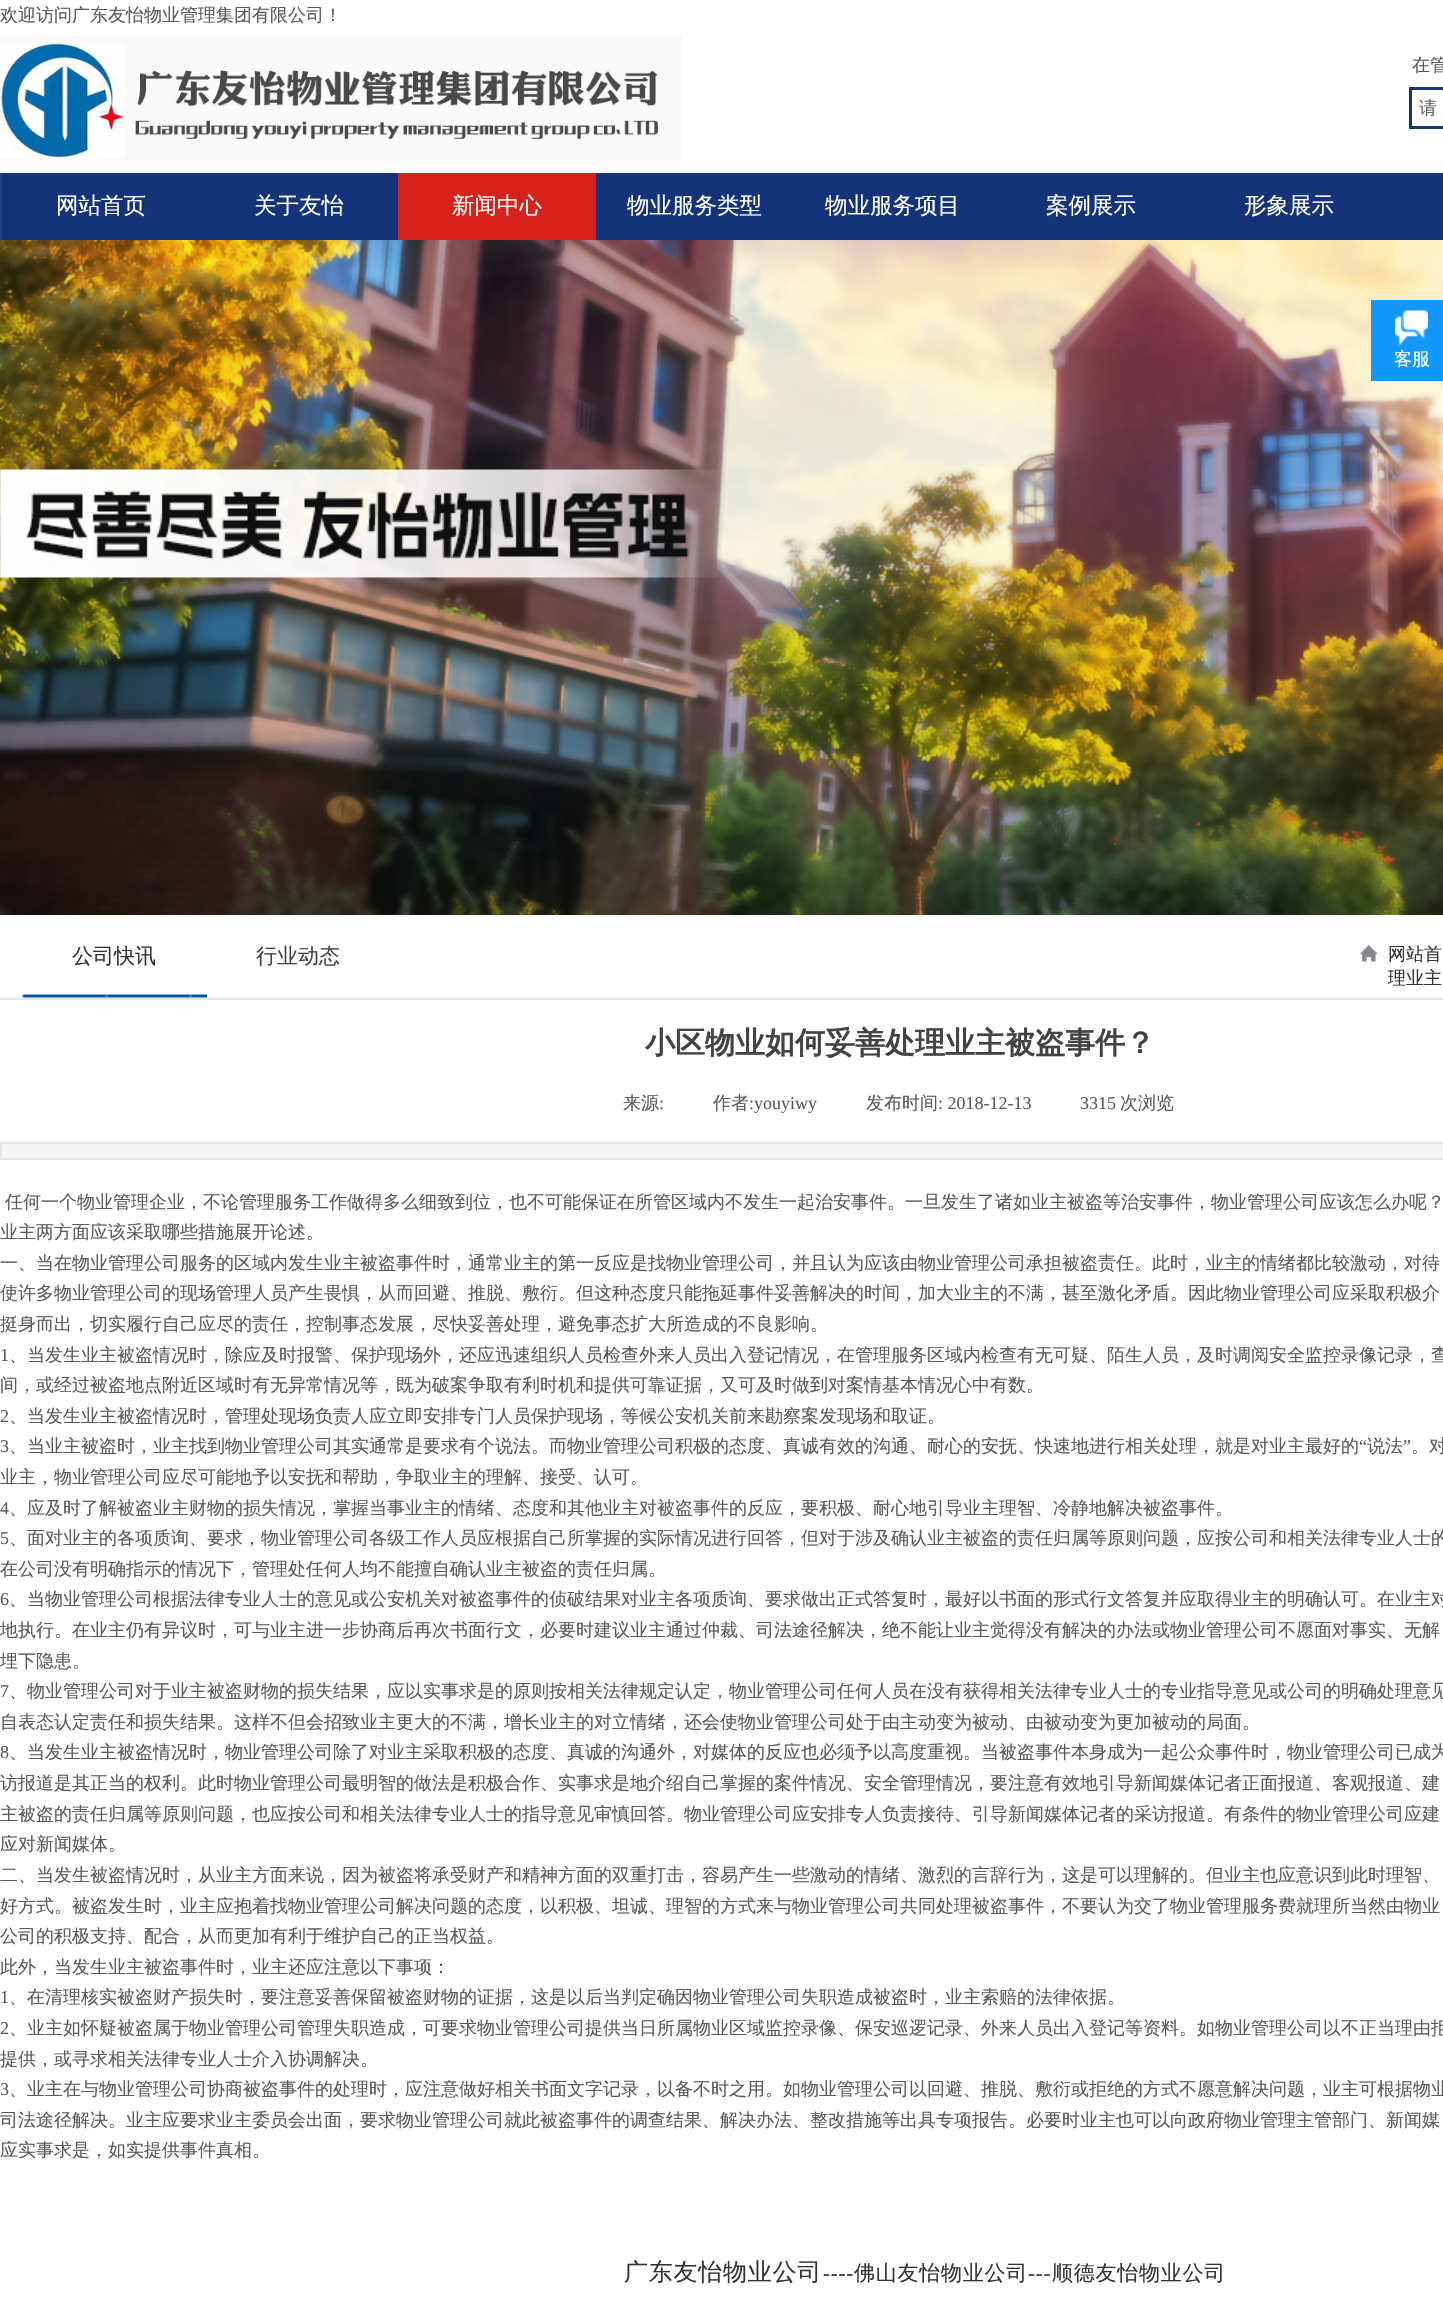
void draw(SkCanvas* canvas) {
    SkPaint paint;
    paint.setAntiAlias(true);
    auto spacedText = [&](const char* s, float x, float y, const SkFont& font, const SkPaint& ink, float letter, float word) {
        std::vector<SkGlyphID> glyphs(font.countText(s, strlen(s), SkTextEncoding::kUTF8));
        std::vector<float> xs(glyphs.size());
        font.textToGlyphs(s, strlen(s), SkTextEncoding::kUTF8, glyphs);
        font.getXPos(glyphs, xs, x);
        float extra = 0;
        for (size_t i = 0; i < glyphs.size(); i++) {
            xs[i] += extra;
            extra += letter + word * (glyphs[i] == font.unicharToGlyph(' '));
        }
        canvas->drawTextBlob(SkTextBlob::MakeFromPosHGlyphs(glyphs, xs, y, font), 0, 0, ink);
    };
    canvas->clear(0xFFFFFFFF);
    SkFont font1(fontMgr->matchFamilyStyle("WenQuanYi Zen Hei", SkFontStyle(500, SkFontStyle::kNormal_Width, SkFontStyle::kUpright_Slant)), 18);
    font1.setSubpixel(true);
    paint.setColor(0xFF5A5A5A);
    canvas->drawString("欢迎访问广东友怡物业管理集团有限公司！", 0, 21, font1, paint);
    canvas->drawImageRect(SkImages::DeferredFromEncodedData(SkData::MakeFromFileName("img1.png")), SkRect::MakeXYWH(0, 36, 682, 127), SkSamplingOptions());
    canvas->drawString("在管", 1412, 71, font1, paint);
    paint.setStyle(SkPaint::kStroke_Style);
    paint.setStrokeWidth(3);
    paint.setColor(0xFF16347A);
    canvas->drawRect(SkRect::MakeXYWH(1410.5f, 88.5f, 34, 39), paint);
    paint.setStyle(SkPaint::kFill_Style);
    paint.setColor(0xFF666666);
    canvas->drawString("请", 1419, 114, font1, paint);
    paint.setColor(0xFF153379);
    canvas->drawRect(SkRect::MakeXYWH(2, 173, 1441, 67), paint);
    paint.setColor(0xFF1C4587);
    canvas->drawRect(SkRect::MakeXYWH(0, 173, 2, 67), paint);
    SkFont font2(fontMgr->matchFamilyStyle("WenQuanYi Zen Hei", SkFontStyle(500, SkFontStyle::kNormal_Width, SkFontStyle::kUpright_Slant)), 22.5f);
    font2.setSubpixel(true);
    paint.setColor(0xFFFFFFFF);
    canvas->drawString("网站首页", 56, 213, font2, paint);
    canvas->drawString("关于友怡", 254, 213, font2, paint);
    paint.setColor(0xFFD7221B);
    canvas->drawRect(SkRect::MakeXYWH(398, 173, 198, 67), paint);
    paint.setColor(0xFFFFFFFF);
    canvas->drawString("新闻中心", 452, 213, font2, paint);
    canvas->drawString("物业服务类型", 627, 213, font2, paint);
    canvas->drawString("物业服务项目", 825, 213, font2, paint);
    canvas->drawString("案例展示", 1046, 213, font2, paint);
    canvas->drawString("形象展示", 1244, 213, font2, paint);
    canvas->drawImageRect(SkImages::DeferredFromEncodedData(SkData::MakeFromFileName("img2.png")), SkRect::MakeXYWH(0, 240, 1443, 675), SkSamplingOptions());
    canvas->drawImageRect(SkImages::DeferredFromEncodedData(SkData::MakeFromFileName("img3.png")), SkRect::MakeXYWH(22, 994, 185, 4), SkSamplingOptions());
    SkFont font3(fontMgr->matchFamilyStyle("WenQuanYi Zen Hei", SkFontStyle(500, SkFontStyle::kNormal_Width, SkFontStyle::kUpright_Slant)), 21);
    font3.setSubpixel(true);
    paint.setColor(0xFF333333);
    canvas->drawString("公司快讯", 72, 963, font3, paint);
    paint.setColor(0xFF434343);
    canvas->drawString("行业动态", 256, 963, font3, paint);
    canvas->drawImageRect(SkImages::DeferredFromEncodedData(SkData::MakeFromFileName("img4.png")), SkRect::MakeXYWH(1360, 944, 18, 18), SkSamplingOptions());
    paint.setColor(0xFF333333);
    canvas->drawString("网站首", 1388, 960, font1, paint);
    canvas->drawString("理业主", 1388, 984, font1, paint);
    paint.setColor(0xFFE5E5E5);
    canvas->drawRect(SkRect::MakeXYWH(0, 998, 1443, 2), paint);
    SkFont font4(fontMgr->matchFamilyStyle("WenQuanYi Zen Hei", SkFontStyle::Bold()), 30);
    font4.setSubpixel(true);
    paint.setColor(0xFF434343);
    canvas->drawString("小区物业如何妥善处理业主被盗事件？", 645, 1053, font4, paint);
    paint.setColor(0xFF5A5A5A);
    canvas->drawString("来源", 623, 1109, font1, paint);
    SkFont font5(fontMgr->matchFamilyStyle("Liberation Serif", SkFontStyle::Normal()), 18);
    font5.setSubpixel(true);
    canvas->drawString(":", 659, 1109, font5, paint);
    canvas->drawString("作者", 713, 1109, font1, paint);
    canvas->drawString(":youyiwy", 749, 1109, font5, paint);
    canvas->drawString("发布时间", 866, 1109, font1, paint);
    canvas->drawString(": 2018-12-13", 938, 1109, font5, paint);
    canvas->drawString("3315", 1080, 1109, font5, paint);
    canvas->drawString("次浏览", 1120, 1109, font1, paint);
    paint.setColor(0xFFF5F5F5);
    canvas->drawRect(SkRect::MakeXYWH(1, 1143, 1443, 16), paint);
    paint.setStyle(SkPaint::kStroke_Style);
    paint.setStrokeWidth(2);
    paint.setColor(0xFFE5E5E5);
    canvas->drawRect(SkRect::MakeXYWH(1, 1143, 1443, 16), paint);
    paint.setStyle(SkPaint::kFill_Style);
    paint.setColor(0xFF5A5A5A);
    canvas->drawString("任何一个物业管理企业，不论管理服务工作做得多么细致到位，也不可能保证在所管区域内不发生一起治安事件。一旦发生了诸如业主被盗等治安事件，物业管理公司应该怎么办呢？", 5, 1208, font1, paint);
    canvas->drawString("业主两方面应该采取哪些措施展开论述。", 0, 1238, font1, paint);
    canvas->drawString("一、当在物业管理公司服务的区域内发生业主被盗事件时，通常业主的第一反应是找物业管理公司，并且认为应该由物业管理公司承担被盗责任。此时，业主的情绪都比较激动，对待", 0, 1269, font1, paint);
    canvas->drawString("使许多物业管理公司的现场管理人员产生畏惧，从而回避、推脱、敷衍。但这种态度只能拖延事件妥善解决的时间，加大业主的不满，甚至激化矛盾。因此物业管理公司应采取积极介", 0, 1299, font1, paint);
    canvas->drawString("挺身而出，切实履行自己应尽的责任，控制事态发展，尽快妥善处理，避免事态扩大所造成的不良影响。", 0, 1330, font1, paint);
    canvas->drawString("1", 0, 1361, font5, paint);
    canvas->drawString("、当发生业主被盗情况时，除应及时报警、保护现场外，还应迅速组织人员检查外来人员出入登记情况，在管理服务区域内检查有无可疑、陌生人员，及时调阅安全监控录像记录，查", 9, 1361, font1, paint);
    canvas->drawString("间，或经过被盗地点附近区域时有无异常情况等，既为破案争取有利时机和提供可靠证据，又可及时做到对案情基本情况心中有数。", 0, 1391, font1, paint);
    canvas->drawString("2", 0, 1422, font5, paint);
    canvas->drawString("、当发生业主被盗情况时，管理处现场负责人应立即安排专门人员保护现场，等候公安机关前来勘察案发现场和取证。", 9, 1422, font1, paint);
    canvas->drawString("3", 0, 1452, font5, paint);
    canvas->drawString("、当业主被盗时，业主找到物业管理公司其实通常是要求有个说法。而物业管理公司积极的态度、真诚有效的沟通、耐心的安抚、快速地进行相关处理，就是对业主最好的", 9, 1452, font1, paint);
    canvas->drawString("“", 1359, 1452, font5, paint);
    canvas->drawString("说法", 1367, 1452, font1, paint);
    canvas->drawString("”", 1403, 1452, font5, paint);
    canvas->drawString("。对", 1411, 1452, font1, paint);
    canvas->drawString("业主，物业管理公司应尽可能地予以安抚和帮助，争取业主的理解、接受、认可。", 0, 1483, font1, paint);
    canvas->drawString("4", 0, 1514, font5, paint);
    canvas->drawString("、应及时了解被盗业主财物的损失情况，掌握当事业主的情绪、态度和其他业主对被盗事件的反应，要积极、耐心地引导业主理智、冷静地解决被盗事件。", 9, 1514, font1, paint);
    canvas->drawString("5", 0, 1544, font5, paint);
    canvas->drawString("、面对业主的各项质询、要求，物业管理公司各级工作人员应根据自己所掌握的实际情况进行回答，但对于涉及确认业主被盗的责任归属等原则问题，应按公司和相关法律专业人士的", 9, 1544, font1, paint);
    canvas->drawString("在公司没有明确指示的情况下，管理处任何人均不能擅自确认业主被盗的责任归属。", 0, 1575, font1, paint);
    canvas->drawString("6", 0, 1605, font5, paint);
    canvas->drawString("、当物业管理公司根据法律专业人士的意见或公安机关对被盗事件的侦破结果对业主各项质询、要求做出正式答复时，最好以书面的形式行文答复并应取得业主的明确认可。在业主对", 9, 1605, font1, paint);
    canvas->drawString("地执行。在业主仍有异议时，可与业主进一步协商后再次书面行文，必要时建议业主通过仲裁、司法途径解决，绝不能让业主觉得没有解决的办法或物业管理公司不愿面对事实、无解", 0, 1636, font1, paint);
    canvas->drawString("埋下隐患。", 0, 1667, font1, paint);
    canvas->drawString("7", 0, 1697, font5, paint);
    canvas->drawString("、物业管理公司对于业主被盗财物的损失结果，应以实事求是的原则按相关法律规定认定，物业管理公司任何人员在没有获得相关法律专业人士的专业指导意见或公司的明确处理意见", 9, 1697, font1, paint);
    canvas->drawString("自表态认定责任和损失结果。这样不但会招致业主更大的不满，增长业主的对立情绪，还会使物业管理公司处于由主动变为被动、由被动变为更加被动的局面。", 0, 1728, font1, paint);
    canvas->drawString("8", 0, 1758, font5, paint);
    canvas->drawString("、当发生业主被盗情况时，物业管理公司除了对业主采取积极的态度、真诚的沟通外，对媒体的反应也必须予以高度重视。当被盗事件本身成为一起公众事件时，物业管理公司已成为", 9, 1758, font1, paint);
    canvas->drawString("访报道是其正当的权利。此时物业管理公司最明智的做法是积极合作、实事求是地介绍自己掌握的案件情况、安全管理情况，要注意有效地引导新闻媒体记者正面报道、客观报道、建", 0, 1789, font1, paint);
    canvas->drawString("主被盗的责任归属等原则问题，也应按公司和相关法律专业人士的指导意见审慎回答。物业管理公司应安排专人负责接待、引导新闻媒体记者的采访报道。有条件的物业管理公司应建", 0, 1820, font1, paint);
    canvas->drawString("应对新闻媒体。", 0, 1850, font1, paint);
    canvas->drawString("二、当发生被盗情况时，从业主方面来说，因为被盗将承受财产和精神方面的双重打击，容易产生一些激动的情绪、激烈的言辞行为，这是可以理解的。但业主也应意识到此时理智、", 0, 1881, font1, paint);
    canvas->drawString("好方式。被盗发生时，业主应抱着找物业管理公司解决问题的态度，以积极、坦诚、理智的方式来与物业管理公司共同处理被盗事件，不要认为交了物业管理服务费就理所当然由物业", 0, 1912, font1, paint);
    canvas->drawString("公司的积极支持、配合，从而更加有利于维护自己的正当权益。", 0, 1942, font1, paint);
    canvas->drawString("此外，当发生业主被盗事件时，业主还应注意以下事项：", 0, 1973, font1, paint);
    canvas->drawString("1", 0, 2003, font5, paint);
    canvas->drawString("、在清理核实被盗财产损失时，要注意妥善保留被盗财物的证据，这是以后当判定确因物业管理公司失职造成被盗时，业主索赔的法律依据。", 9, 2003, font1, paint);
    canvas->drawString("2", 0, 2034, font5, paint);
    canvas->drawString("、业主如怀疑被盗属于物业管理公司管理失职造成，可要求物业管理公司提供当日所属物业区域监控录像、保安巡逻记录、外来人员出入登记等资料。如物业管理公司以不正当理由拒", 9, 2034, font1, paint);
    canvas->drawString("提供，或寻求相关法律专业人士介入协调解决。", 0, 2065, font1, paint);
    canvas->drawString("3", 0, 2095, font5, paint);
    canvas->drawString("、业主在与物业管理公司协商被盗事件的处理时，应注意做好相关书面文字记录，以备不时之用。如物业管理公司以回避、推脱、敷衍或拒绝的方式不愿意解决问题，业主可根据物业", 9, 2095, font1, paint);
    canvas->drawString("司法途径解决。业主应要求业主委员会出面，要求物业管理公司就此被盗事件的调查结果、解决办法、整改措施等出具专项报告。必要时业主也可以向政府物业管理主管部门、新闻媒", 0, 2126, font1, paint);
    canvas->drawString("应实事求是，如实提供事件真相。", 0, 2156, font1, paint);
    SkFont font6(fontMgr->matchFamilyStyle("WenQuanYi Zen Hei", SkFontStyle(500, SkFontStyle::kNormal_Width, SkFontStyle::kUpright_Slant)), 24);
    font6.setSubpixel(true);
    paint.setColor(0xFF333333);
    spacedText("广东友怡物业公司", 624, 2280, font6, paint, 0.75f, 0);
    SkFont font7(fontMgr->matchFamilyStyle("Liberation Serif", SkFontStyle::Normal()), 21);
    font7.setSubpixel(true);
    spacedText("----", 823, 2280, font7, paint, 0.75f, 0);
    spacedText("佛山友怡物业公司", 854, 2280, font3, paint, 0.75f, 0);
    spacedText("---", 1028, 2280, font7, paint, 0.75f, 0);
    spacedText("顺德友怡物业公司", 1052, 2280, font3, paint, 0.75f, 0);
    paint.setColor(0xFF1298FA);
    canvas->drawRect(SkRect::MakeXYWH(1371, 300, 72, 81), paint);
    canvas->drawImageRect(SkImages::DeferredFromEncodedData(SkData::MakeFromFileName("img5.png")), SkRect::MakeXYWH(1395, 310, 33, 35), SkSamplingOptions());
    paint.setColor(0xFFFFFFFF);
    canvas->drawString("客服", 1394, 365, font1, paint);
}
